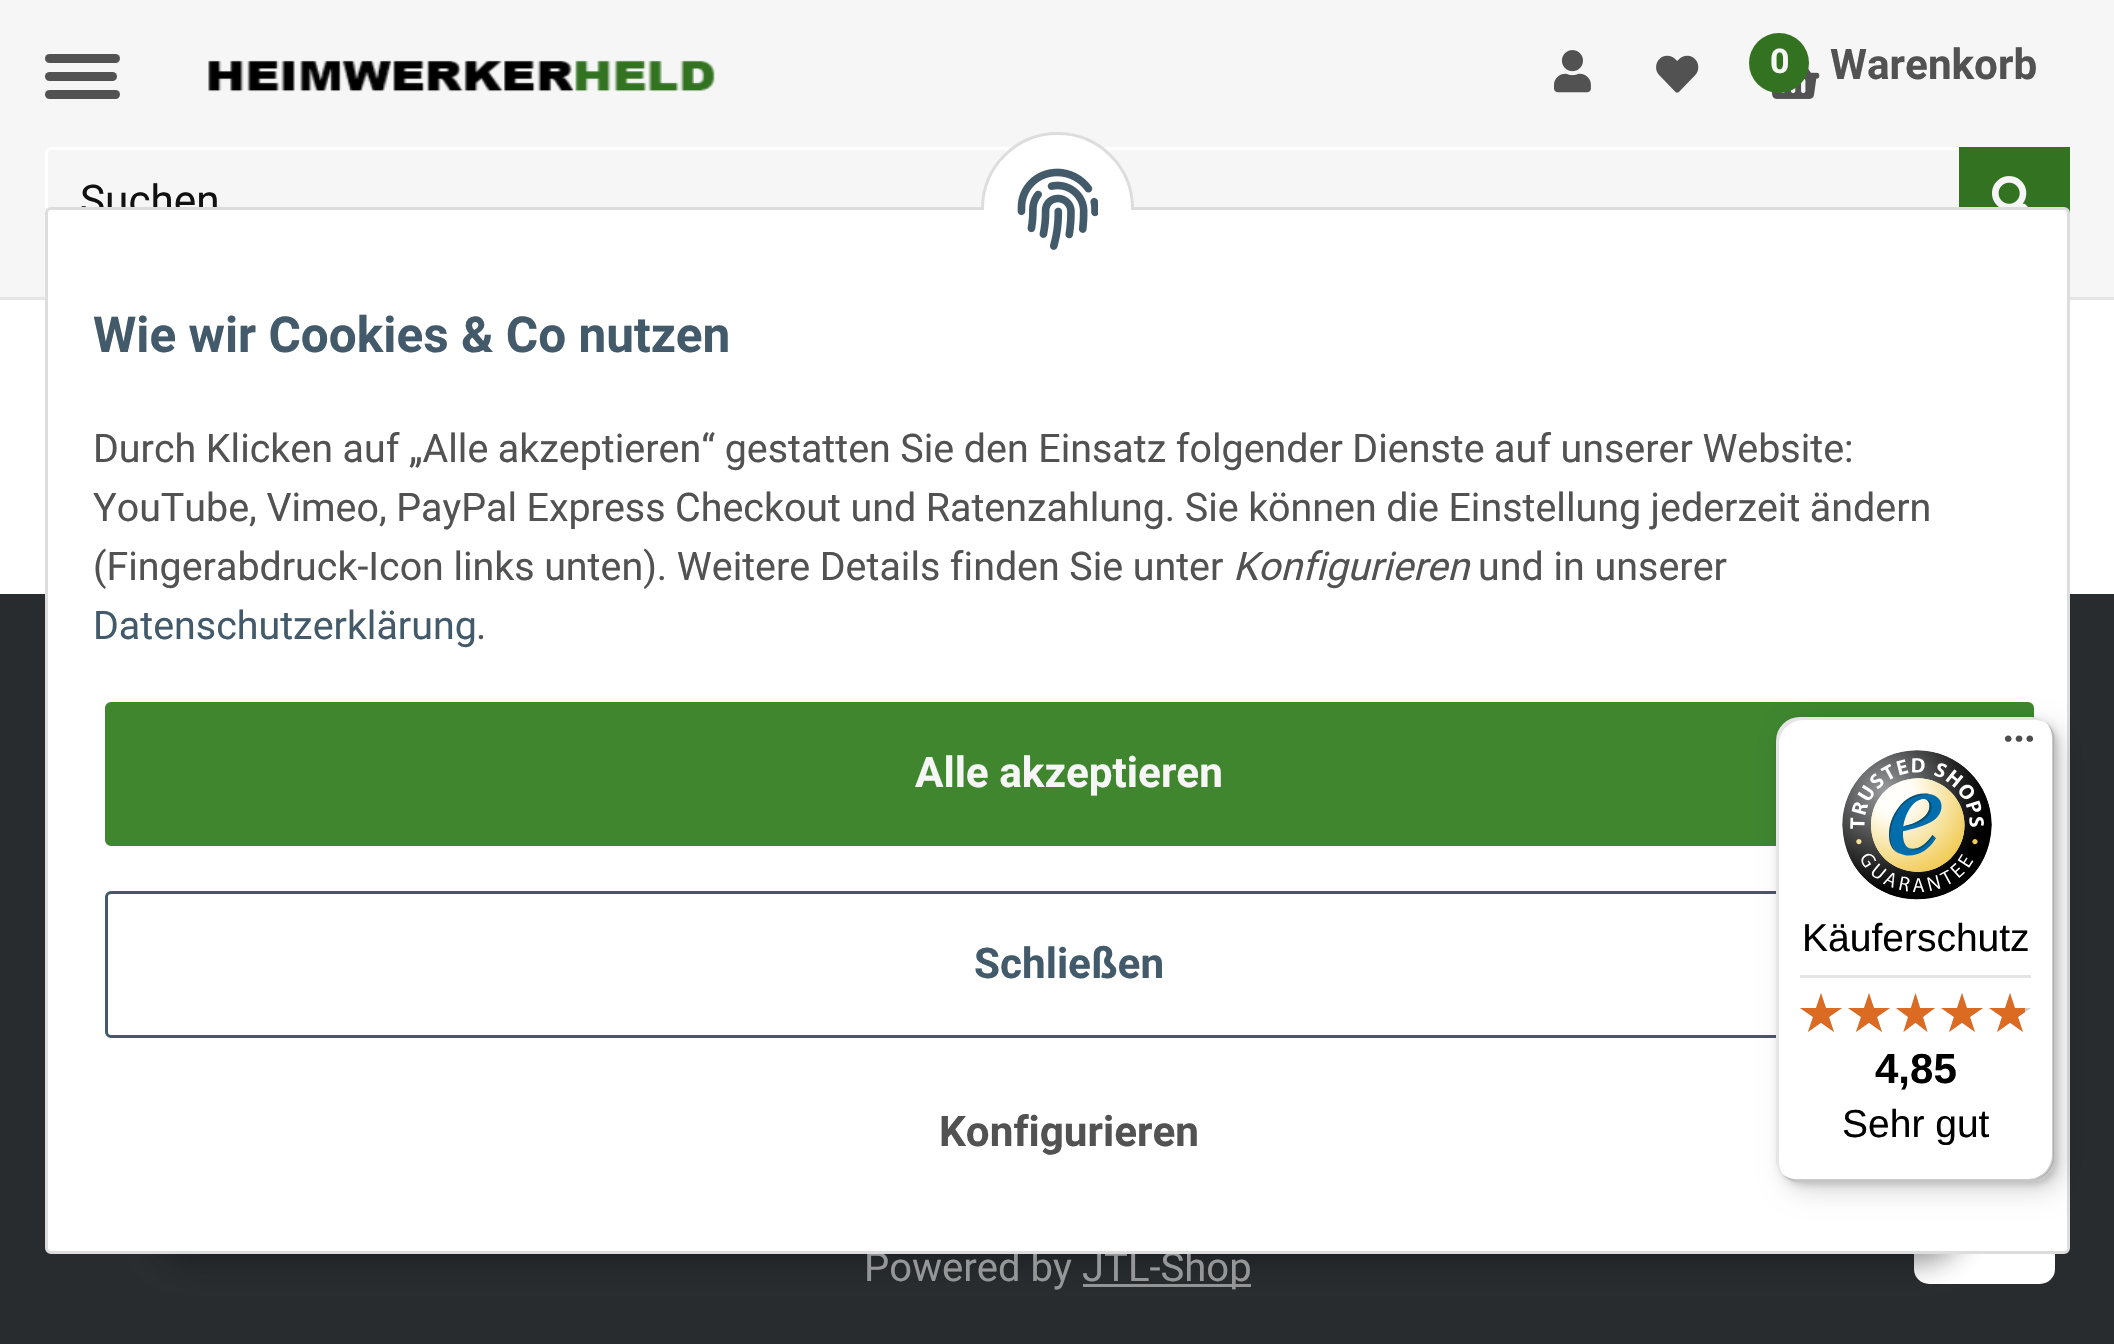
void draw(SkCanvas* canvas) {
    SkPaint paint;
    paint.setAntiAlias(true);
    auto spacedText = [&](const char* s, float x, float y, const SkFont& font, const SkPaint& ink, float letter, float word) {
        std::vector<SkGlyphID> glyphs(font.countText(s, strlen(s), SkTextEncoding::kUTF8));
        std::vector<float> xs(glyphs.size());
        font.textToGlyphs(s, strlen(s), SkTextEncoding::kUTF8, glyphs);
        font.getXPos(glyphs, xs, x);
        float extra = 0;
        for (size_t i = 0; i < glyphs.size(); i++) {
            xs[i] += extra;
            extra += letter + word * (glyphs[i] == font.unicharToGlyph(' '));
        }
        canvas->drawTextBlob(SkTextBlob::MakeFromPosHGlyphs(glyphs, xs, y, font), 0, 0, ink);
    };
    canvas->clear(0xFFFFFFFF);
    paint.setColor(0xFFF6F6F6);
    canvas->drawRect(SkRect::MakeXYWH(0, 0, 2114, 297), paint);
    paint.setColor(0xFF525252);
    canvas->drawRoundRect(SkRect::MakeXYWH(45, 72, 72, 9), 4.5f, 4.5f, paint);
    canvas->drawRoundRect(SkRect::MakeXYWH(45, 54, 75, 9), 4.5f, 4.5f, paint);
    canvas->drawRoundRect(SkRect::MakeXYWH(45, 90, 75, 9), 4.5f, 4.5f, paint);
    canvas->drawImageRect(SkImages::DeferredFromEncodedData(SkData::MakeFromFileName("img1.png")), SkRect::MakeXYWH(208, 60, 507, 32), SkSamplingOptions());
    canvas->drawImageRect(SkImages::DeferredFromEncodedData(SkData::MakeFromFileName("img2.png")), SkRect::MakeXYWH(1554, 50, 37, 43), SkSamplingOptions());
    canvas->drawImageRect(SkImages::DeferredFromEncodedData(SkData::MakeFromFileName("img3.png")), SkRect::MakeXYWH(1656, 55, 43, 38), SkSamplingOptions());
    canvas->drawImageRect(SkImages::DeferredFromEncodedData(SkData::MakeFromFileName("img4.png")), SkRect::MakeXYWH(1771, 68, 49, 31), SkSamplingOptions());
    paint.setColor(0xFF337221);
    canvas->drawCircle(1779, 63, 30, paint);
    SkFont font1(fontMgr->matchFamilyStyle("Roboto", SkFontStyle::Bold()), 34);
    font1.setSubpixel(true);
    paint.setColor(0xFFF6F6F6);
    canvas->drawString("0", 1770, 73, font1, paint);
    SkFont font2(fontMgr->matchFamilyStyle("Roboto", SkFontStyle::Bold()), 42.25f);
    font2.setSubpixel(true);
    paint.setColor(0xFF525252);
    canvas->drawString("Warenkorb", 1830, 79, font2, paint);
    paint.setStyle(SkPaint::kStroke_Style);
    paint.setStrokeWidth(3);
    paint.setColor(0xFFFFFFFF);
    canvas->drawRoundRect(SkRect::MakeXYWH(46.5f, 148.5f, 1914, 102), 4.5f, 4.5f, paint);
    SkFont font3(fontMgr->matchFamilyStyle("Roboto", SkFontStyle::Normal()), 42.25f);
    font3.setSubpixel(true);
    paint.setStyle(SkPaint::kFill_Style);
    paint.setColor(0xFF111111);
    canvas->drawString("Suchen", 80, 215, font3, paint);
    paint.setColor(0xFF337221);
    canvas->drawRect(SkRect::MakeXYWH(1959, 147, 111, 66), paint);
    canvas->drawImageRect(SkImages::DeferredFromEncodedData(SkData::MakeFromFileName("img5.png")), SkRect::MakeXYWH(1992, 176, 36, 31), SkSamplingOptions());
    paint.setColor(0xFFE5E5E5);
    canvas->drawRect(SkRect::MakeXYWH(0, 297, 2114, 3), paint);
    paint.setColor(0xFF282C2F);
    canvas->drawRect(SkRect::MakeXYWH(0, 594, 2114, 750), paint);
    paint.setColor(0xFF949697);
    canvas->drawRect(SkRect::MakeXYWH(1083, 1284, 168, 3), paint);
    paint.setColor(0xFFFFFFFF);
    canvas->drawRoundRect(SkRect::MakeXYWH(1914, 1152, 141, 132), 15, 15, paint);
    paint.setColor(0x73111111);
    paint.setMaskFilter(SkMaskFilter::MakeBlur(kNormal_SkBlurStyle, 14));
    canvas->drawRoundRect(SkRect::MakeXYWH(150, 1173, 1815, 90), 45, 45, paint);
    paint.setMaskFilter(nullptr);
    SkFont font4(fontMgr->matchFamilyStyle("Roboto", SkFontStyle::Normal()), 40);
    font4.setSubpixel(true);
    paint.setColor(0xFF949697);
    canvas->drawString("Powered by", 864, 1281, font4, paint);
    canvas->drawString("JTL-Shop", 1082, 1281, font4, paint);
    paint.setColor(0xFFFFFFFF);
    canvas->drawRoundRect(SkRect::MakeXYWH(46.5f, 208.5f, 2022, 1044), 4.5f, 4.5f, paint);
    paint.setStyle(SkPaint::kStroke_Style);
    paint.setColor(0xFFDDDDDD);
    canvas->drawRoundRect(SkRect::MakeXYWH(46.5f, 208.5f, 2022, 1044), 4.5f, 4.5f, paint);
    paint.setStyle(SkPaint::kFill_Style);
    paint.setColor(0xFFFFFFFF);
    canvas->drawRoundRect(SkRect::MakeXYWH(982.5f, 133.5f, 150, 153), 75, 75, paint);
    paint.setStyle(SkPaint::kStroke_Style);
    paint.setColor(0xFFDDDDDD);
    canvas->drawRoundRect(SkRect::MakeXYWH(982.5f, 133.5f, 150, 153), 75, 75, paint);
    paint.setStyle(SkPaint::kFill_Style);
    paint.setColor(0xFFFFFFFF);
    canvas->drawRect(SkRect::MakeXYWH(981, 210, 153, 78), paint);
    canvas->drawImageRect(SkImages::DeferredFromEncodedData(SkData::MakeFromFileName("img6.png")), SkRect::MakeXYWH(1017, 168, 81, 82), SkSamplingOptions());
    SkFont font5(fontMgr->matchFamilyStyle("Roboto", SkFontStyle::Bold()), 49.5f);
    font5.setSubpixel(true);
    paint.setColor(0xFF435A6B);
    canvas->drawString("Wie wir Cookies & Co nutzen", 93, 352, font5, paint);
    SkFont font6(fontMgr->matchFamilyStyle("Roboto", SkFontStyle::Normal()), 39.4f);
    font6.setSubpixel(true);
    paint.setColor(0xFF525252);
    spacedText("Durch Klicken auf „Alle akzeptieren“ gestatten Sie den Einsatz folgender Dienste auf unserer Website:", 93, 462, font6, paint, 0, -0.2f);
    spacedText("YouTube, Vimeo, PayPal Express Checkout und Ratenzahlung. Sie können die Einstellung jederzeit ändern", 93, 521, font6, paint, 0, -0.25f);
    spacedText("(Fingerabdruck-Icon links unten). Weitere Details finden Sie unter", 93, 580, font6, paint, 0, -0.25f);
    SkFont font7(fontMgr->matchFamilyStyle("Roboto", SkFontStyle::Italic()), 39.4f);
    font7.setSubpixel(true);
    canvas->drawString("Konfigurieren", 1233, 580, font7, paint);
    canvas->drawString("und in unserer", 1478, 580, font6, paint);
    paint.setColor(0xFF435A6B);
    canvas->drawString("Datenschutzerklärung", 93, 639, font6, paint);
    paint.setColor(0xFF525252);
    canvas->drawString(".", 476, 639, font6, paint);
    paint.setColor(0xFF3F862F);
    canvas->drawRoundRect(SkRect::MakeXYWH(106.5f, 703.5f, 1926, 141), 4.5f, 4.5f, paint);
    paint.setStyle(SkPaint::kStroke_Style);
    canvas->drawRoundRect(SkRect::MakeXYWH(106.5f, 703.5f, 1926, 141), 4.5f, 4.5f, paint);
    paint.setStyle(SkPaint::kFill_Style);
    paint.setColor(0xFFF6F6F6);
    canvas->drawString("Alle akzeptieren", 915, 787, font2, paint);
    paint.setStyle(SkPaint::kStroke_Style);
    paint.setColor(0xFF435A6B);
    canvas->drawRoundRect(SkRect::MakeXYWH(106.5f, 892.5f, 1926, 144), 4.5f, 4.5f, paint);
    paint.setStyle(SkPaint::kFill_Style);
    canvas->drawString("Schließen", 974, 978, font2, paint);
    paint.setColor(0xFF525252);
    canvas->drawString("Konfigurieren", 939, 1146, font2, paint);
    paint.setColor(0x26000000);
    paint.setMaskFilter(SkMaskFilter::MakeBlur(kNormal_SkBlurStyle, 12));
    canvas->drawRoundRect(SkRect::MakeXYWH(1785, 726, 279, 465), 24, 24, paint);
    paint.setMaskFilter(nullptr);
    paint.setMaskFilter(SkMaskFilter::MakeBlur(kNormal_SkBlurStyle, 3));
    canvas->drawRoundRect(SkRect::MakeXYWH(1779, 720, 279, 465), 24, 24, paint);
    paint.setMaskFilter(nullptr);
    paint.setColor(0xFFFFFFFF);
    canvas->drawRoundRect(SkRect::MakeXYWH(1776, 717, 279, 465), 24, 24, paint);
    paint.setColor(0x1A000000);
    canvas->drawPath(SkPathBuilder().moveTo(1803, 720).lineTo(2034, 720).cubicTo(2040, 720, 2046, 722, 2050, 726).cubicTo(2045, 721, 2039, 717, 2031, 717).lineTo(1800, 717).cubicTo(1787, 717, 1776, 728, 1776, 741).lineTo(1776, 1158).cubicTo(1776, 1166, 1780, 1172, 1785, 1177).cubicTo(1781, 1173, 1779, 1167, 1779, 1161).lineTo(1779, 744).cubicTo(1779, 731, 1790, 720, 1803, 720).close().detach(), paint);
    paint.setColor(0x33000000);
    canvas->drawPath(SkPathBuilder().moveTo(1781, 1173).cubicTo(1786, 1178, 1792, 1182, 1800, 1182).lineTo(2031, 1182).cubicTo(2044, 1182, 2055, 1171, 2055, 1158).lineTo(2055, 741).cubicTo(2055, 733, 2051, 727, 2046, 722).cubicTo(2050, 726, 2052, 732, 2052, 738).lineTo(2052, 1155).cubicTo(2052, 1168, 2041, 1179, 2028, 1179).lineTo(1797, 1179).cubicTo(1791, 1179, 1785, 1177, 1781, 1173).close().detach(), paint);
    paint.setColor(0x33323232);
    canvas->drawPath(SkPathBuilder().moveTo(1781, 1173).cubicTo(1786, 1179, 1792, 1182, 1800, 1182).lineTo(2031, 1182).cubicTo(2044, 1182, 2055, 1171, 2055, 1158).lineTo(2055, 741).cubicTo(2055, 733, 2052, 727, 2046, 722).cubicTo(2050, 727, 2053, 733, 2053, 739).lineTo(2053, 1156).cubicTo(2053, 1169, 2042, 1180, 2029, 1180).lineTo(1798, 1180).cubicTo(1792, 1180, 1786, 1177, 1781, 1173).close().detach(), paint);
    paint.setColor(0x4DFFFFFF);
    canvas->drawPath(SkPathBuilder().moveTo(1783, 1175).cubicTo(1787, 1179, 1793, 1182, 1800, 1182).lineTo(2031, 1182).cubicTo(2044, 1182, 2055, 1171, 2055, 1158).lineTo(2055, 741).cubicTo(2055, 735, 2053, 729, 2049, 725).cubicTo(2052, 729, 2054, 734, 2054, 740).lineTo(2054, 1156).cubicTo(2054, 1170, 2043, 1180, 2030, 1180).lineTo(1798, 1180).cubicTo(1792, 1180, 1787, 1178, 1783, 1175).close().detach(), paint);
    canvas->drawImageRect(SkImages::DeferredFromEncodedData(SkData::MakeFromFileName("img7.png")), SkRect::MakeXYWH(2004, 735, 30, 7), SkSamplingOptions());
    canvas->drawImageRect(SkImages::DeferredFromEncodedData(SkData::MakeFromFileName("img8.png")), SkRect::MakeXYWH(1842, 750, 150, 150), SkSamplingOptions());
    SkFont font8(fontMgr->matchFamilyStyle("Liberation Sans", SkFontStyle::Normal()), 39);
    font8.setSubpixel(true);
    paint.setColor(0xFF000000);
    canvas->drawString("Käuferschutz", 1802, 951, font8, paint);
    paint.setColor(0xFFE5E5E5);
    canvas->drawRect(SkRect::MakeXYWH(1800, 975, 231, 3), paint);
    canvas->drawImageRect(SkImages::DeferredFromEncodedData(SkData::MakeFromFileName("img9.png")), SkRect::MakeXYWH(1800, 993, 42, 39), SkSamplingOptions());
    canvas->drawImageRect(SkImages::DeferredFromEncodedData(SkData::MakeFromFileName("img9.png")), SkRect::MakeXYWH(1848, 993, 42, 39), SkSamplingOptions());
    canvas->drawImageRect(SkImages::DeferredFromEncodedData(SkData::MakeFromFileName("img10.png")), SkRect::MakeXYWH(1896, 993, 39, 39), SkSamplingOptions());
    canvas->drawImageRect(SkImages::DeferredFromEncodedData(SkData::MakeFromFileName("img9.png")), SkRect::MakeXYWH(1941, 993, 42, 39), SkSamplingOptions());
    canvas->drawImageRect(SkImages::DeferredFromEncodedData(SkData::MakeFromFileName("img9.png")), SkRect::MakeXYWH(1989, 993, 42, 39), SkSamplingOptions());
    canvas->drawImageRect(SkImages::DeferredFromEncodedData(SkData::MakeFromFileName("img11.png")), SkRect::MakeXYWH(1800, 993, 42, 39), SkSamplingOptions());
    canvas->drawImageRect(SkImages::DeferredFromEncodedData(SkData::MakeFromFileName("img11.png")), SkRect::MakeXYWH(1848, 993, 42, 39), SkSamplingOptions());
    canvas->drawImageRect(SkImages::DeferredFromEncodedData(SkData::MakeFromFileName("img12.png")), SkRect::MakeXYWH(1896, 993, 39, 39), SkSamplingOptions());
    canvas->drawImageRect(SkImages::DeferredFromEncodedData(SkData::MakeFromFileName("img11.png")), SkRect::MakeXYWH(1941, 993, 42, 39), SkSamplingOptions());
    canvas->drawImageRect(SkImages::DeferredFromEncodedData(SkData::MakeFromFileName("img13.png")), SkRect::MakeXYWH(1989, 993, 36, 39), SkSamplingOptions());
    SkFont font9(fontMgr->matchFamilyStyle("Liberation Sans", SkFontStyle::Bold()), 42);
    font9.setSubpixel(true);
    paint.setColor(0xFF000000);
    canvas->drawString("4,85", 1875, 1083, font9, paint);
    canvas->drawString("Sehr gut", 1842, 1137, font8, paint);
}
